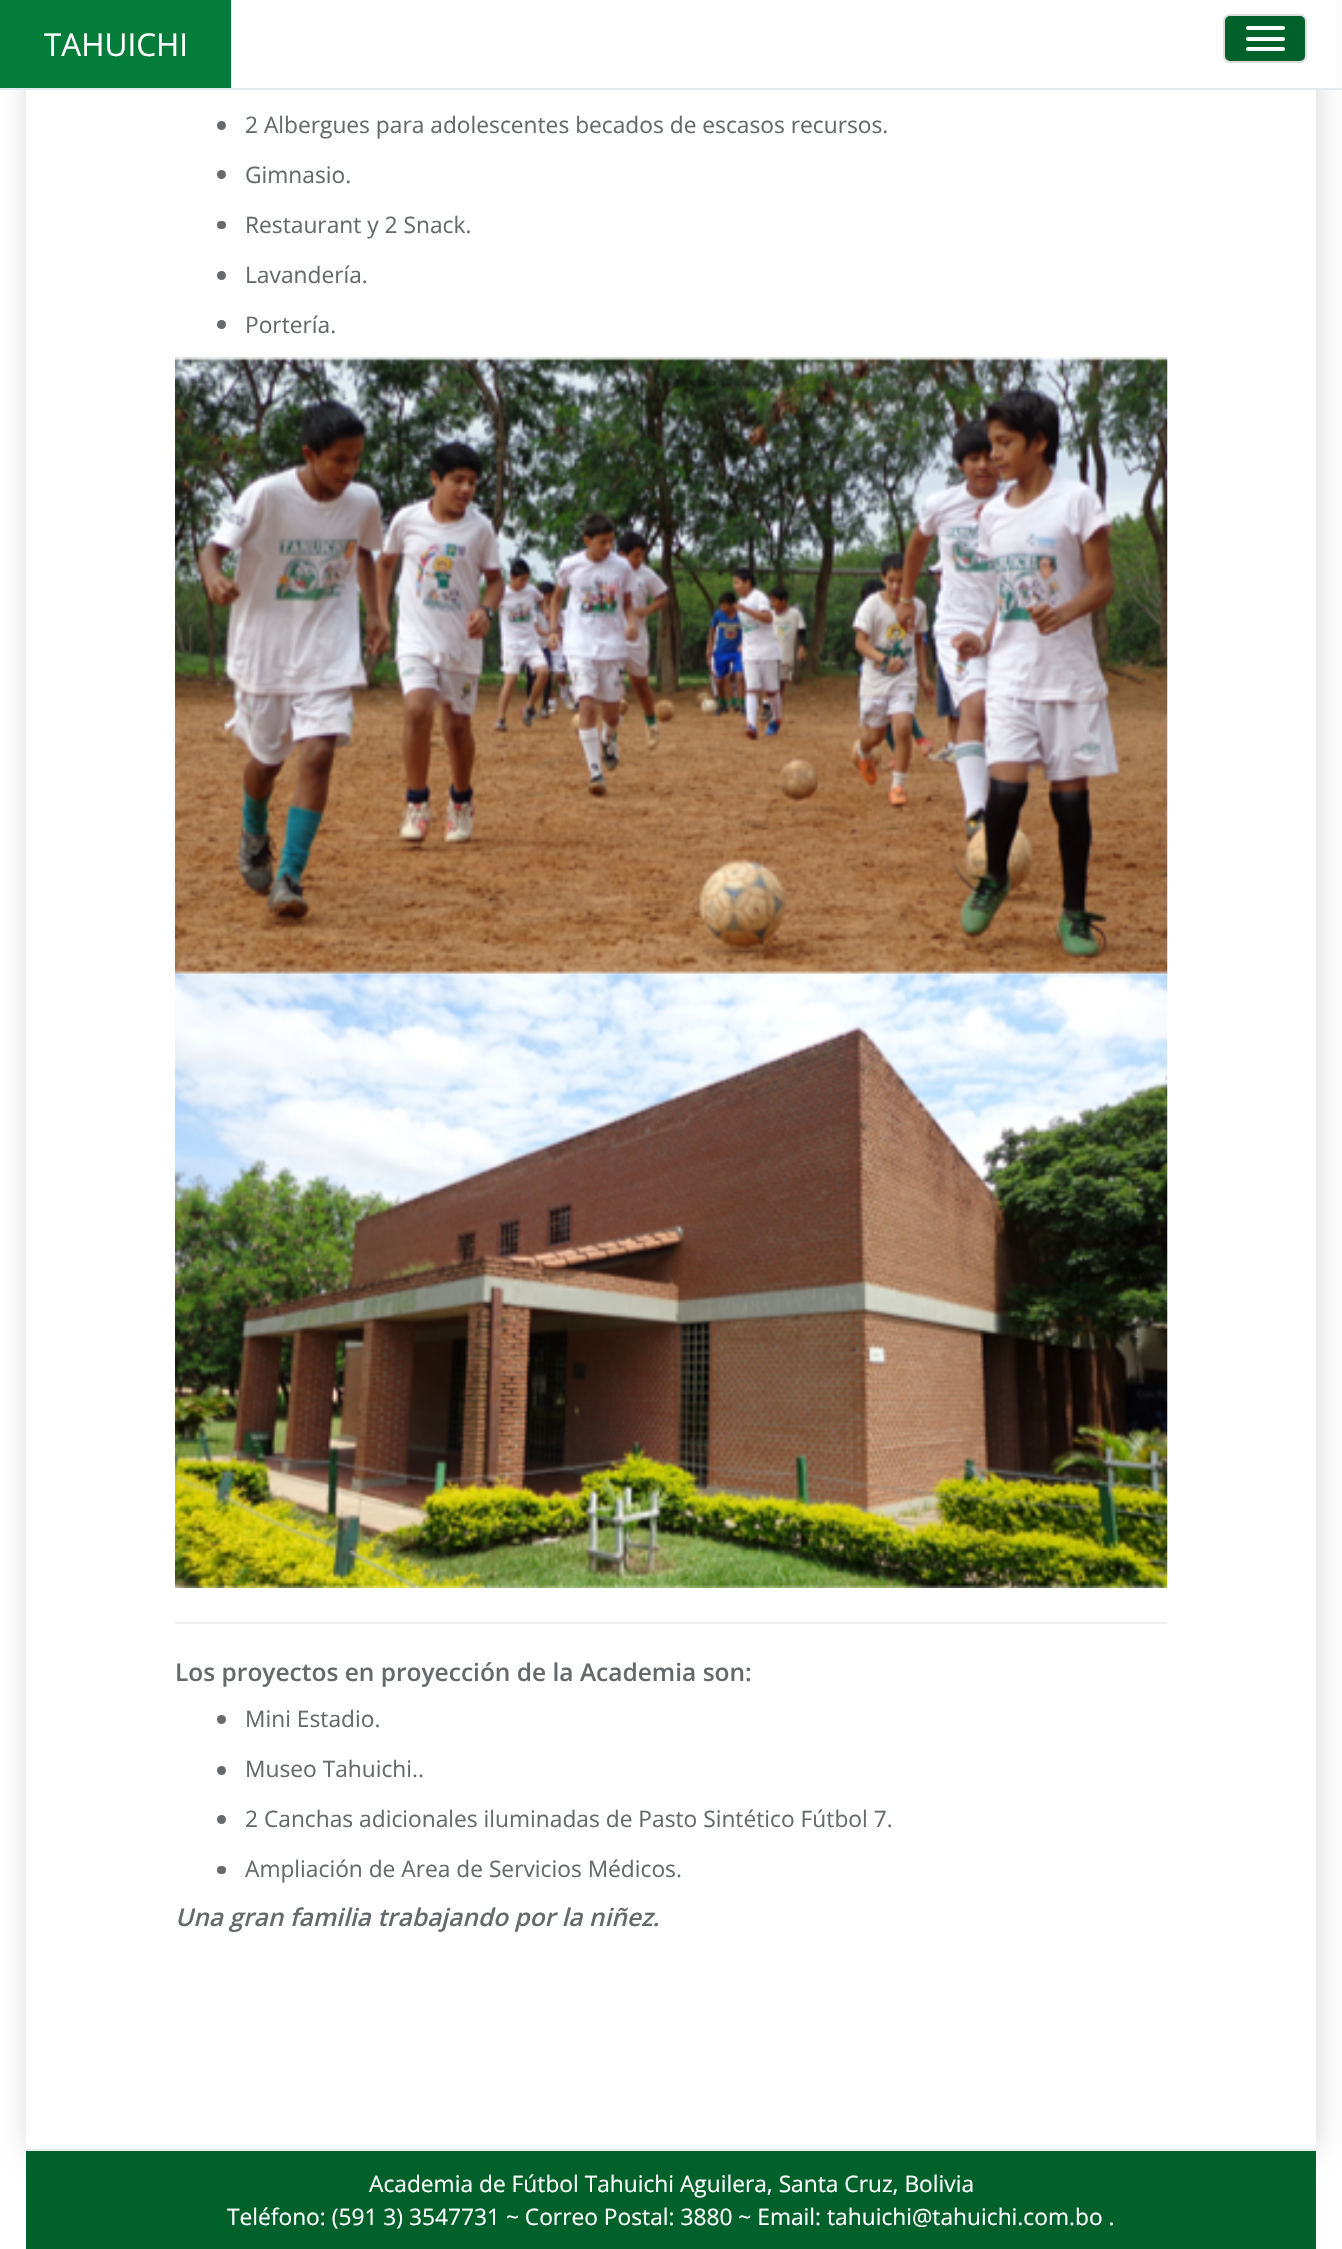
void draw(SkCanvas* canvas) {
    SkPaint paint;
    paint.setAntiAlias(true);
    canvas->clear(0xFFFFFFFF);
    canvas->save();
    canvas->clipPath(SkPathBuilder(SkPathFillType::kEvenOdd).moveTo(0, 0).lineTo(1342, 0).lineTo(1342, 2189).lineTo(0, 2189).close().moveTo(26, -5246).lineTo(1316, -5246).lineTo(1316, 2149).lineTo(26, 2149).close().detach(), true);
    paint.setColor(0xFFD3D3D3);
    paint.setMaskFilter(SkMaskFilter::MakeBlur(kNormal_SkBlurStyle, 13));
    canvas->drawRect(SkRect::MakeXYWH(30, -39, 1286, 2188), paint);
    paint.setMaskFilter(nullptr);
    canvas->restore();
    paint.setColor(0xFFFFFFFF);
    canvas->drawRect(SkRect::MakeXYWH(1316, 0, 20, 88), paint);
    paint.setColor(0xFFE7EAEC);
    canvas->drawRect(SkRect::MakeXYWH(0, 88, 1342, 2), paint);
    paint.setColor(0xFF057D3A);
    canvas->drawRect(SkRect::MakeXYWH(0, 0, 231, 88), paint);
    SkFont font1(fontMgr->matchFamilyStyle("Open Sans", SkFontStyle::Normal()), 31.5f);
    font1.setSubpixel(true);
    paint.setColor(0xFFFFFFFF);
    canvas->drawString("TAHUICHI", 44, 56, font1, paint);
    paint.setColor(0xFF00612B);
    canvas->drawRoundRect(SkRect::MakeXYWH(1224, 15, 82, 47), 6, 6, paint);
    paint.setStyle(SkPaint::kStroke_Style);
    paint.setStrokeWidth(2);
    paint.setColor(0xFFDDDDDD);
    canvas->drawRoundRect(SkRect::MakeXYWH(1224, 15, 82, 47), 6, 6, paint);
    paint.setStyle(SkPaint::kFill_Style);
    paint.setColor(0xFFFFFFFF);
    canvas->drawRoundRect(SkRect::MakeXYWH(1246, 26, 39, 4), 2, 2, paint);
    canvas->drawRoundRect(SkRect::MakeXYWH(1246, 37, 39, 4), 2, 2, paint);
    canvas->drawRoundRect(SkRect::MakeXYWH(1246, 47, 39, 4), 2, 2, paint);
    paint.setColor(0xFF676A6C);
    canvas->drawCircle(221.5f, 125.5f, 4.5f, paint);
    SkFont font2(fontMgr->matchFamilyStyle("Open Sans", SkFontStyle::Normal()), 22.75f);
    font2.setSubpixel(true);
    canvas->drawString("2 Albergues para adolescentes becados de escasos recursos.", 245, 133, font2, paint);
    canvas->drawCircle(221.5f, 174.5f, 4.5f, paint);
    canvas->drawString("Gimnasio.", 245, 183, font2, paint);
    canvas->drawRoundRect(SkRect::MakeXYWH(217, 221, 9, 8), 4, 4, paint);
    canvas->drawString("Restaurant y 2 Snack.", 245, 233, font2, paint);
    canvas->drawCircle(221.5f, 275.5f, 4.5f, paint);
    canvas->drawString("Lavandería.", 245, 283, font2, paint);
    canvas->drawCircle(221.5f, 324.5f, 4.5f, paint);
    canvas->drawString("Portería.", 245, 333, font2, paint);
    canvas->drawImageRect(SkImages::DeferredFromEncodedData(SkData::MakeFromFileName("img1.png")), SkRect::MakeXYWH(175, 357, 993, 617), SkSamplingOptions());
    canvas->drawImageRect(SkImages::DeferredFromEncodedData(SkData::MakeFromFileName("img2.png")), SkRect::MakeXYWH(175, 971, 993, 617), SkSamplingOptions());
    paint.setColor(0xFFEEEEEE);
    canvas->drawRect(SkRect::MakeXYWH(175, 1622, 992, 2), paint);
    SkFont font3(fontMgr->matchFamilyStyle("Open Sans", SkFontStyle(600, SkFontStyle::kNormal_Width, SkFontStyle::kUpright_Slant)), 24.5f);
    font3.setSubpixel(true);
    paint.setColor(0xFF676A6C);
    canvas->drawString("Los proyectos en proyección de la Academia son:", 175, 1681, font3, paint);
    canvas->drawCircle(221.5f, 1719.5f, 4.5f, paint);
    canvas->drawString("Mini Estadio.", 245, 1727, font2, paint);
    canvas->drawCircle(221.5f, 1770.5f, 4.5f, paint);
    canvas->drawString("Museo Tahuichi..", 245, 1777, font2, paint);
    canvas->drawCircle(221.5f, 1819.5f, 4.5f, paint);
    canvas->drawString("2 Canchas adicionales iluminadas de Pasto Sintético Fútbol 7.", 245, 1827, font2, paint);
    canvas->drawRoundRect(SkRect::MakeXYWH(217, 1866, 9, 8), 4, 4, paint);
    canvas->drawString("Ampliación de Area de Servicios Médicos.", 245, 1877, font2, paint);
    SkFont font4(fontMgr->matchFamilyStyle("Open Sans", SkFontStyle(600, SkFontStyle::kNormal_Width, SkFontStyle::kItalic_Slant)), 24.5f);
    font4.setSubpixel(true);
    canvas->drawString("Una gran familia trabajando por la niñez.", 175, 1926, font4, paint);
    paint.setColor(0xFF00612B);
    canvas->drawRect(SkRect::MakeXYWH(26, 2151, 1290, 98), paint);
    paint.setColor(0xFFE7EAEC);
    canvas->drawRect(SkRect::MakeXYWH(26, 2149, 1290, 2), paint);
    paint.setColor(0xFFFFFFFF);
    canvas->drawString("Academia de Fútbol Tahuichi Aguilera, Santa Cruz, Bolivia", 369, 2192, font2, paint);
    canvas->drawString("Teléfono: (591 3) 3547731 ~ Correo Postal: 3880 ~ Email: tahuichi@tahuichi.com.bo .", 227, 2225, font2, paint);
}
